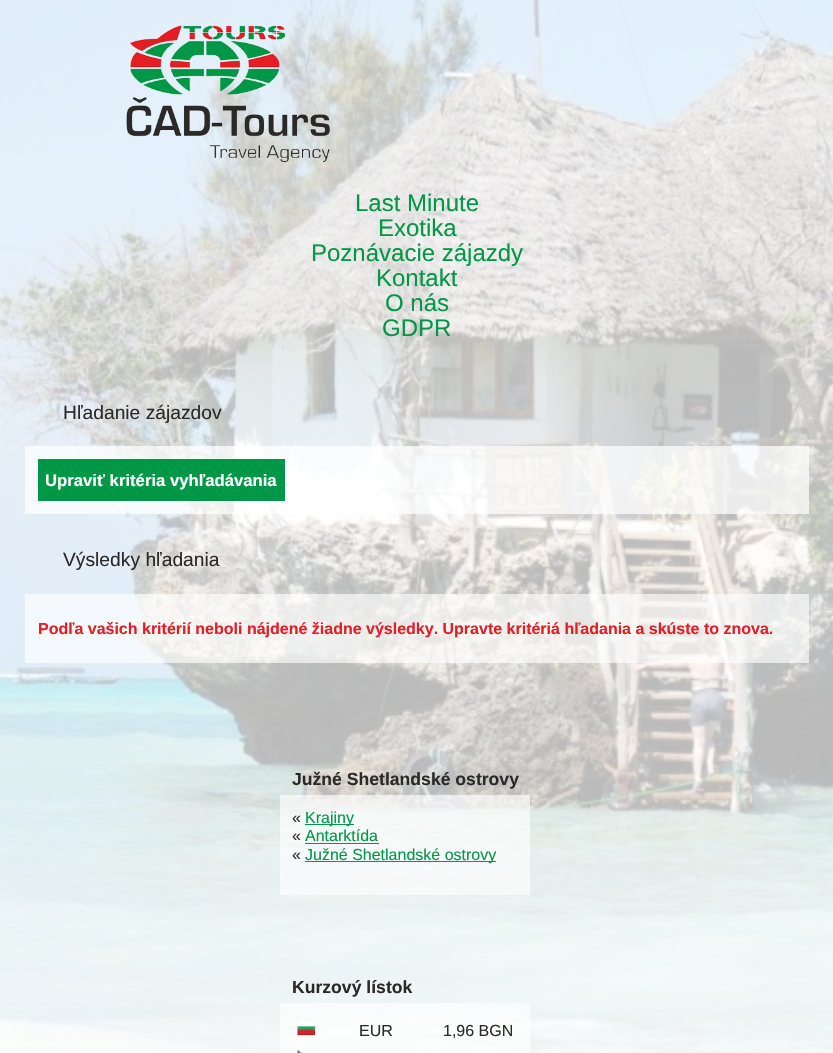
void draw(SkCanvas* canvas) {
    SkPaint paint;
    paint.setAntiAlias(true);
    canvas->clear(0xFFFFFFFF);
    canvas->drawImageRect(SkImages::DeferredFromEncodedData(SkData::MakeFromFileName("img1.png")), SkRect::MakeXYWH(0, 0, 833, 1053), SkSamplingOptions());
    canvas->drawImageRect(SkImages::DeferredFromEncodedData(SkData::MakeFromFileName("img2.png")), SkRect::MakeXYWH(126, 25, 204, 137), SkSamplingOptions());
    SkFont font1(fontMgr->matchFamilyStyle("Liberation Sans", SkFontStyle::Normal()), 24);
    font1.setSubpixel(true);
    paint.setColor(0xFF009746);
    canvas->drawString("Last Minute", 355, 211, font1, paint);
    canvas->drawString("Exotika", 378, 236, font1, paint);
    canvas->drawString("Poznávacie zájazdy", 311, 261, font1, paint);
    canvas->drawString("Kontakt", 376, 286, font1, paint);
    canvas->drawString("O nás", 385, 311, font1, paint);
    canvas->drawString("GDPR", 382, 336, font1, paint);
    SkFont font2(fontMgr->matchFamilyStyle("Liberation Sans", SkFontStyle::Normal()), 19.25f);
    font2.setSubpixel(true);
    paint.setColor(0xFF2B2A28);
    canvas->drawString("Hľadanie zájazdov", 63, 419, font2, paint);
    paint.setColor(0xB8FFFFFF);
    canvas->drawRect(SkRect::MakeXYWH(25, 446, 784, 68), paint);
    paint.setColor(0xFF009746);
    canvas->drawRect(SkRect::MakeXYWH(38, 459, 247, 42), paint);
    SkFont font3(fontMgr->matchFamilyStyle("Liberation Sans", SkFontStyle::Bold()), 16.7f);
    font3.setSubpixel(true);
    paint.setColor(0xFFFFFFFF);
    canvas->drawString("Upraviť kritéria vyhľadávania", 45, 486, font3, paint);
    paint.setColor(0xFF2B2A28);
    canvas->drawString("Výsledky hľadania", 63, 566, font2, paint);
    paint.setColor(0xA3FFFFFF);
    canvas->drawRect(SkRect::MakeXYWH(25, 594, 784, 69), paint);
    SkFont font4(fontMgr->matchFamilyStyle("Liberation Sans", SkFontStyle::Bold()), 16);
    font4.setSubpixel(true);
    paint.setColor(0xFFE31E25);
    canvas->drawString("Podľa vašich kritérií neboli nájdené žiadne výsledky. Upravte kritériá hľadania a skúste to znova.", 38, 634, font4, paint);
    SkFont font5(fontMgr->matchFamilyStyle("Liberation Sans", SkFontStyle::Bold()), 17.6f);
    font5.setSubpixel(true);
    paint.setColor(0xFF2B2A28);
    canvas->drawString("Južné Shetlandské ostrovy", 292, 785, font5, paint);
    paint.setColor(0xA3FFFFFF);
    canvas->drawRect(SkRect::MakeXYWH(280, 795, 250, 100), paint);
    SkFont font6(fontMgr->matchFamilyStyle("Liberation Sans", SkFontStyle::Normal()), 16);
    font6.setSubpixel(true);
    paint.setColor(0xFF2B2A28);
    canvas->drawString("«", 292, 823, font6, paint);
    paint.setColor(0xFF009746);
    canvas->drawRect(SkRect::MakeXYWH(305, 824, 49, 1), paint);
    canvas->drawString("Krajiny", 305, 823, font6, paint);
    paint.setColor(0xFF2B2A28);
    canvas->drawString("«", 292, 841, font6, paint);
    paint.setColor(0xFF009746);
    canvas->drawString("Antarktída", 305, 841, font6, paint);
    canvas->drawRect(SkRect::MakeXYWH(305, 843, 74, 1), paint);
    paint.setColor(0xFF2B2A28);
    canvas->drawString("«", 292, 860, font6, paint);
    paint.setColor(0xFF009746);
    canvas->drawRect(SkRect::MakeXYWH(305, 861, 191, 1), paint);
    canvas->drawString("Južné Shetlandské ostrovy", 305, 860, font6, paint);
    paint.setColor(0xFF2B2A28);
    canvas->drawString("Kurzový lístok", 292, 993, font5, paint);
    paint.setColor(0xA3FFFFFF);
    canvas->drawRect(SkRect::MakeXYWH(280, 1003, 250, 50), paint);
    canvas->drawImageRect(SkImages::DeferredFromEncodedData(SkData::MakeFromFileName("img3.png")), SkRect::MakeXYWH(297, 1022, 19, 14), SkSamplingOptions());
    paint.setColor(0xFF2B2A28);
    canvas->drawString("EUR", 359, 1036, font6, paint);
    canvas->drawString("1,96 BGN", 443, 1036, font6, paint);
    canvas->drawImageRect(SkImages::DeferredFromEncodedData(SkData::MakeFromFileName("img4.png")), SkRect::MakeXYWH(297, 1049, 6, 4), SkSamplingOptions());
}
